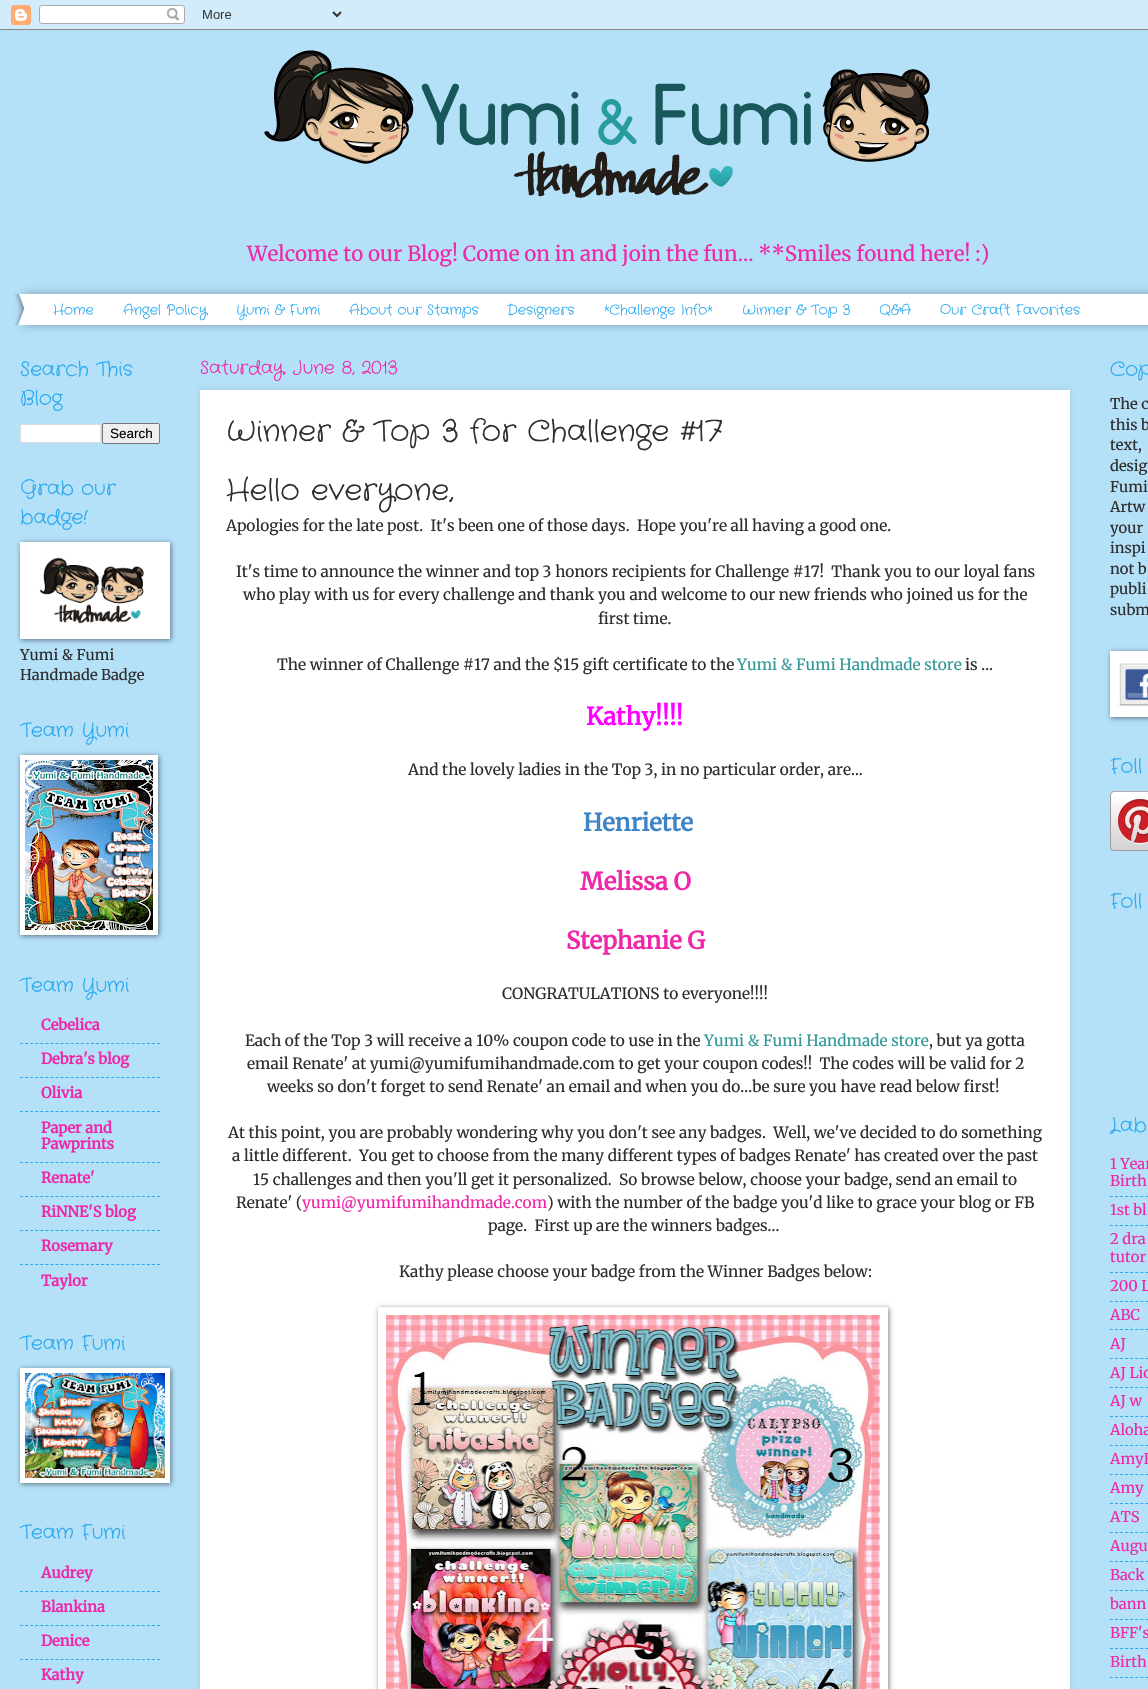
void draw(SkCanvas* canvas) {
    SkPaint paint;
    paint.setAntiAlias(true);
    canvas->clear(0xFFB4E0F8);
    canvas->drawImageRect(SkImages::DeferredFromEncodedData(SkData::MakeFromFileName("img1.png")), SkRect::MakeXYWH(0, 0, 1148, 30), SkSamplingOptions());
    canvas->drawImageRect(SkImages::DeferredFromEncodedData(SkData::MakeFromFileName("img2.png")), SkRect::MakeXYWH(264, 50, 666, 148), SkSamplingOptions());
    SkFont font1(fontMgr->matchFamilyStyle("Merriweather", SkFontStyle(300, SkFontStyle::kNormal_Width, SkFontStyle::kUpright_Slant)), 20.6f);
    font1.setSubpixel(true);
    paint.setColor(0xFFEF28A8);
    canvas->drawString("Welcome to our Blog! Come on in and join the fun... **Smiles found here! :)", 247, 261, font1, paint);
    paint.setColor(0x4D000000);
    paint.setMaskFilter(SkMaskFilter::MakeBlur(kNormal_SkBlurStyle, 5));
    canvas->drawRect(SkRect::MakeXYWH(24, 294, 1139, 31), paint);
    paint.setMaskFilter(nullptr);
    paint.setColor(0xFFFFFFFF);
    canvas->drawRect(SkRect::MakeXYWH(24, 294, 1124, 31), paint);
    canvas->drawImageRect(SkImages::DeferredFromEncodedData(SkData::MakeFromFileName("img3.png")), SkRect::MakeXYWH(14, 294, 10, 31), SkSamplingOptions());
    SkFont font2(fontMgr->matchFamilyStyle("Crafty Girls", SkFontStyle::Normal()), 14);
    font2.setSubpixel(true);
    paint.setColor(0xFF29A9EF);
    canvas->drawString("Home", 53, 314, font2, paint);
    canvas->drawString("Angel Policy", 123, 314, font2, paint);
    canvas->drawString("Yumi & Fumi", 236, 314, font2, paint);
    canvas->drawString("About our Stamps", 349, 314, font2, paint);
    canvas->drawString("Designers", 507, 314, font2, paint);
    canvas->drawString("*Challenge Info*", 604, 314, font2, paint);
    canvas->drawString("Winner & Top 3", 742, 314, font2, paint);
    canvas->drawString("Q&A", 879, 314, font2, paint);
    canvas->drawString("Our Craft Favorites", 940, 314, font2, paint);
    SkFont font3(fontMgr->matchFamilyStyle("Crafty Girls", SkFontStyle::Normal()), 20);
    font3.setSubpixel(true);
    canvas->drawString("Search This", 20, 375, font3, paint);
    canvas->drawString("Blog", 20, 404, font3, paint);
    paint.setColor(0xFFFFFFFF);
    canvas->drawRect(SkRect::MakeXYWH(20.5f, 424.5f, 80, 18), paint);
    paint.setStyle(SkPaint::kStroke_Style);
    paint.setStrokeWidth(1);
    paint.setColor(0xFFDDDDDD);
    canvas->drawRect(SkRect::MakeXYWH(20.5f, 424.5f, 80, 18), paint);
    paint.setStyle(SkPaint::kFill_Style);
    paint.setColor(0xFFEFEFEF);
    canvas->drawRoundRect(SkRect::MakeXYWH(102.5f, 423.5f, 57, 20), 1.5f, 1.5f, paint);
    paint.setStyle(SkPaint::kStroke_Style);
    paint.setColor(0xFF767676);
    canvas->drawRoundRect(SkRect::MakeXYWH(102.5f, 423.5f, 57, 20), 1.5f, 1.5f, paint);
    SkFont font4(fontMgr->matchFamilyStyle("Liberation Sans", SkFontStyle::Normal()), 13.5f);
    font4.setSubpixel(true);
    paint.setStyle(SkPaint::kFill_Style);
    paint.setColor(0xFF000000);
    canvas->drawString("Search", 110, 438, font4, paint);
    paint.setColor(0xFF29A9EF);
    canvas->drawString("Grab our", 20, 494, font3, paint);
    canvas->drawString("badge!", 20, 523, font3, paint);
    paint.setColor(0x80000000);
    paint.setMaskFilter(SkMaskFilter::MakeBlur(kNormal_SkBlurStyle, 2.5f));
    canvas->drawRect(SkRect::MakeXYWH(21, 543, 150, 97), paint);
    paint.setMaskFilter(nullptr);
    paint.setColor(0xFFFFFFFF);
    canvas->drawRect(SkRect::MakeXYWH(20, 542, 150, 97), paint);
    canvas->drawImageRect(SkImages::DeferredFromEncodedData(SkData::MakeFromFileName("img4.png")), SkRect::MakeXYWH(39, 557, 105, 67), SkSamplingOptions());
    SkFont font5(fontMgr->matchFamilyStyle("Merriweather", SkFontStyle(300, SkFontStyle::kNormal_Width, SkFontStyle::kUpright_Slant)), 14.75f);
    font5.setSubpixel(true);
    paint.setColor(0xFF2F2F2F);
    canvas->drawString("Yumi & Fumi", 20, 660, font5, paint);
    canvas->drawString("Handmade Badge", 20, 680, font5, paint);
    paint.setColor(0xFF29A9EF);
    canvas->drawString("Team Yumi", 20, 736, font3, paint);
    paint.setColor(0x80000000);
    paint.setMaskFilter(SkMaskFilter::MakeBlur(kNormal_SkBlurStyle, 2.5f));
    canvas->drawRect(SkRect::MakeXYWH(21, 756, 138, 180), paint);
    paint.setMaskFilter(nullptr);
    paint.setColor(0xFFFFFFFF);
    canvas->drawRect(SkRect::MakeXYWH(20, 755, 138, 180), paint);
    canvas->drawImageRect(SkImages::DeferredFromEncodedData(SkData::MakeFromFileName("img5.png")), SkRect::MakeXYWH(25, 760, 128, 170), SkSamplingOptions());
    paint.setColor(0xFF29A9EF);
    canvas->drawString("Team Yumi", 20, 991, font3, paint);
    SkFont font6(fontMgr->matchFamilyStyle("Merriweather", SkFontStyle::Bold()), 14.75f);
    font6.setSubpixel(true);
    paint.setColor(0xFFEF28A8);
    canvas->drawString("Cebelica", 41, 1030, font6, paint);
    paint.setStyle(SkPaint::kStroke_Style);
    paint.setColor(0xFF29A9EF);
    paint.setPathEffect(SkDashPathEffect::Make({{3, 2.07f}}, 0));
    canvas->drawPath(SkPathBuilder().moveTo(20, 1043.5f).lineTo(160, 1043.5f).detach(), paint);
    paint.setPathEffect(nullptr);
    paint.setStyle(SkPaint::kFill_Style);
    paint.setColor(0xFFEF28A8);
    canvas->drawString("Debra's blog", 41, 1064, font6, paint);
    paint.setStyle(SkPaint::kStroke_Style);
    paint.setColor(0xFF29A9EF);
    paint.setPathEffect(SkDashPathEffect::Make({{3, 2.07f}}, 0));
    canvas->drawPath(SkPathBuilder().moveTo(20, 1077.5f).lineTo(160, 1077.5f).detach(), paint);
    paint.setPathEffect(nullptr);
    paint.setStyle(SkPaint::kFill_Style);
    paint.setColor(0xFFEF28A8);
    canvas->drawString("Olivia", 41, 1098, font6, paint);
    paint.setStyle(SkPaint::kStroke_Style);
    paint.setColor(0xFF29A9EF);
    paint.setPathEffect(SkDashPathEffect::Make({{3, 2.07f}}, 0));
    canvas->drawPath(SkPathBuilder().moveTo(20, 1111.5f).lineTo(160, 1111.5f).detach(), paint);
    paint.setPathEffect(nullptr);
    paint.setStyle(SkPaint::kFill_Style);
    paint.setColor(0xFFEF28A8);
    canvas->drawString("Paper and", 41, 1133, font6, paint);
    canvas->drawString("Pawprints", 41, 1149, font6, paint);
    paint.setStyle(SkPaint::kStroke_Style);
    paint.setColor(0xFF29A9EF);
    paint.setPathEffect(SkDashPathEffect::Make({{3, 2.07f}}, 0));
    canvas->drawPath(SkPathBuilder().moveTo(20, 1162.5f).lineTo(160, 1162.5f).detach(), paint);
    paint.setPathEffect(nullptr);
    paint.setStyle(SkPaint::kFill_Style);
    paint.setColor(0xFFEF28A8);
    canvas->drawString("Renate'", 41, 1183, font6, paint);
    paint.setStyle(SkPaint::kStroke_Style);
    paint.setColor(0xFF29A9EF);
    paint.setPathEffect(SkDashPathEffect::Make({{3, 2.07f}}, 0));
    canvas->drawPath(SkPathBuilder().moveTo(20, 1196.5f).lineTo(160, 1196.5f).detach(), paint);
    paint.setPathEffect(nullptr);
    paint.setStyle(SkPaint::kFill_Style);
    paint.setColor(0xFFEF28A8);
    canvas->drawString("RiNNE'S blog", 41, 1217, font6, paint);
    paint.setStyle(SkPaint::kStroke_Style);
    paint.setColor(0xFF29A9EF);
    paint.setPathEffect(SkDashPathEffect::Make({{3, 2.07f}}, 0));
    canvas->drawPath(SkPathBuilder().moveTo(20, 1230.5f).lineTo(160, 1230.5f).detach(), paint);
    paint.setPathEffect(nullptr);
    paint.setStyle(SkPaint::kFill_Style);
    paint.setColor(0xFFEF28A8);
    canvas->drawString("Rosemary", 41, 1251, font6, paint);
    paint.setStyle(SkPaint::kStroke_Style);
    paint.setColor(0xFF29A9EF);
    paint.setPathEffect(SkDashPathEffect::Make({{3, 2.07f}}, 0));
    canvas->drawPath(SkPathBuilder().moveTo(20, 1264.5f).lineTo(160, 1264.5f).detach(), paint);
    paint.setPathEffect(nullptr);
    paint.setStyle(SkPaint::kFill_Style);
    paint.setColor(0xFFEF28A8);
    canvas->drawString("Taylor", 41, 1286, font6, paint);
    paint.setColor(0xFF29A9EF);
    canvas->drawString("Team Fumi", 20, 1349, font3, paint);
    paint.setColor(0x80000000);
    paint.setMaskFilter(SkMaskFilter::MakeBlur(kNormal_SkBlurStyle, 2.5f));
    canvas->drawRect(SkRect::MakeXYWH(21, 1369, 150, 115), paint);
    paint.setMaskFilter(nullptr);
    paint.setColor(0xFFFFFFFF);
    canvas->drawRect(SkRect::MakeXYWH(20, 1368, 150, 115), paint);
    canvas->drawImageRect(SkImages::DeferredFromEncodedData(SkData::MakeFromFileName("img6.png")), SkRect::MakeXYWH(25, 1373, 140, 105), SkSamplingOptions());
    paint.setColor(0xFF29A9EF);
    canvas->drawString("Team Fumi", 20, 1538, font3, paint);
    paint.setColor(0xFFEF28A8);
    canvas->drawString("Audrey", 41, 1578, font6, paint);
    paint.setStyle(SkPaint::kStroke_Style);
    paint.setColor(0xFF29A9EF);
    paint.setPathEffect(SkDashPathEffect::Make({{3, 2.07f}}, 0));
    canvas->drawPath(SkPathBuilder().moveTo(20, 1591.5f).lineTo(160, 1591.5f).detach(), paint);
    paint.setPathEffect(nullptr);
    paint.setStyle(SkPaint::kFill_Style);
    paint.setColor(0xFFEF28A8);
    canvas->drawString("Blankina", 41, 1612, font6, paint);
    paint.setStyle(SkPaint::kStroke_Style);
    paint.setColor(0xFF29A9EF);
    paint.setPathEffect(SkDashPathEffect::Make({{3, 2.07f}}, 0));
    canvas->drawPath(SkPathBuilder().moveTo(20, 1625.5f).lineTo(160, 1625.5f).detach(), paint);
    paint.setPathEffect(nullptr);
    paint.setStyle(SkPaint::kFill_Style);
    paint.setColor(0xFFEF28A8);
    canvas->drawString("Denice", 41, 1646, font6, paint);
    paint.setStyle(SkPaint::kStroke_Style);
    paint.setColor(0xFF29A9EF);
    paint.setPathEffect(SkDashPathEffect::Make({{3, 2.07f}}, 0));
    canvas->drawPath(SkPathBuilder().moveTo(20, 1659.5f).lineTo(160, 1659.5f).detach(), paint);
    paint.setPathEffect(nullptr);
    paint.setStyle(SkPaint::kFill_Style);
    paint.setColor(0xFFEF28A8);
    canvas->drawString("Kathy", 41, 1680, font6, paint);
    paint.setColor(0x1A000000);
    paint.setMaskFilter(SkMaskFilter::MakeBlur(kNormal_SkBlurStyle, 2.5f));
    canvas->drawRect(SkRect::MakeXYWH(200, 390, 870, 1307), paint);
    paint.setMaskFilter(nullptr);
    SkFont font7(fontMgr->matchFamilyStyle("Crafty Girls", SkFontStyle::Normal()), 18);
    font7.setSubpixel(true);
    paint.setColor(0xFFEF28A8);
    canvas->drawString("Saturday, June 8, 2013", 200, 373, font7, paint);
    paint.setColor(0xFFFFFFFF);
    canvas->drawRect(SkRect::MakeXYWH(200, 390, 870, 1299), paint);
    SkFont font8(fontMgr->matchFamilyStyle("Crafty Girls", SkFontStyle::Normal()), 30);
    font8.setSubpixel(true);
    paint.setColor(0xFF2F2F2F);
    canvas->drawString("Winner & Top 3 for Challenge #17", 226, 440, font8, paint);
    canvas->drawString("Hello everyone,", 226, 499, font8, paint);
    SkFont font9(fontMgr->matchFamilyStyle("Merriweather", SkFontStyle(300, SkFontStyle::kNormal_Width, SkFontStyle::kUpright_Slant)), 15.45f);
    font9.setSubpixel(true);
    canvas->drawString("Apologies for the late post.  It's been one of those days.  Hope you're all having a good one.", 226, 531, font9, paint);
    canvas->drawString("It's time to announce the winner and top 3 honors recipients for Challenge #17!  Thank you to our loyal fans", 236, 577, font9, paint);
    canvas->drawString("who play with us for every challenge and thank you and welcome to our new friends who joined us for the", 243, 600, font9, paint);
    canvas->drawString("first time.", 598, 624, font9, paint);
    canvas->drawString("The winner of Challenge #17 and the $15 gift certificate to the", 277, 670, font9, paint);
    paint.setColor(0xFF339999);
    canvas->drawString("Yumi & Fumi Handmade store", 737, 670, font9, paint);
    paint.setColor(0xFF2F2F2F);
    canvas->drawString("is ...", 965, 670, font9, paint);
    SkFont font10(fontMgr->matchFamilyStyle("Merriweather", SkFontStyle::Bold()), 24);
    font10.setSubpixel(true);
    paint.setColor(0xFFFF00FF);
    canvas->drawString("Kathy!!!!", 586, 725, font10, paint);
    paint.setColor(0xFF2F2F2F);
    canvas->drawString("And the lovely ladies in the Top 3, in no particular order, are...", 408, 775, font9, paint);
    paint.setColor(0xFF3D85C6);
    canvas->drawString("Henriette", 583, 831, font10, paint);
    paint.setColor(0xFFEF28A8);
    canvas->drawString("Melissa O", 580, 890, font10, paint);
    canvas->drawString("Stephanie G", 566, 949, font10, paint);
    paint.setColor(0xFF2F2F2F);
    canvas->drawString("CONGRATULATIONS to everyone!!!!", 502, 999, font9, paint);
    canvas->drawString("Each of the Top 3 will receive a 10% coupon code to use in the", 245, 1046, font9, paint);
    paint.setColor(0xFF339999);
    canvas->drawString("Yumi & Fumi Handmade store", 704, 1046, font9, paint);
    paint.setColor(0xFF2F2F2F);
    canvas->drawString(", but ya gotta", 929, 1046, font9, paint);
    canvas->drawString("email Renate' at yumi@yumifumihandmade.com to get your coupon codes!!  The codes will be valid for 2", 247, 1069, font9, paint);
    canvas->drawString("weeks so don't forget to send Renate' an email and when you do...be sure you have read below first!", 267, 1092, font9, paint);
    canvas->drawString("At this point, you are probably wondering why you don't see any badges.  Well, we've decided to do something", 228, 1138, font9, paint);
    canvas->drawString("a little different.  You get to choose from the many different types of badges Renate' has created over the past", 232, 1161, font9, paint);
    canvas->drawString("15 challenges and then you'll get it personalized.  So browse below, choose your badge, send an email to", 253, 1185, font9, paint);
    canvas->drawString("Renate' (", 236, 1208, font9, paint);
    paint.setColor(0xFFEF28A8);
    canvas->drawString("yumi@yumifumihandmade.com", 302, 1208, font9, paint);
    paint.setColor(0xFF2F2F2F);
    canvas->drawString(") with the number of the badge you'd like to grace your blog or FB", 547, 1208, font9, paint);
    canvas->drawString("page.  First up are the winners badges...", 488, 1231, font9, paint);
    canvas->drawString("Kathy please choose your badge from the Winner Badges below:", 399, 1277, font9, paint);
    canvas->save();
    canvas->clipPath(SkPathBuilder(SkPathFillType::kEvenOdd).moveTo(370, 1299).lineTo(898, 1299).lineTo(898, 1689).lineTo(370, 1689).close().moveTo(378, 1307).lineTo(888, 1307).lineTo(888, 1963).lineTo(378, 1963).close().detach(), true);
    paint.setColor(0x80000000);
    paint.setMaskFilter(SkMaskFilter::MakeBlur(kNormal_SkBlurStyle, 2.5f));
    canvas->drawRect(SkRect::MakeXYWH(379, 1308, 510, 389), paint);
    paint.setMaskFilter(nullptr);
    canvas->restore();
    canvas->drawImageRect(SkImages::DeferredFromEncodedData(SkData::MakeFromFileName("img7.png")), SkRect::MakeXYWH(386, 1315, 494, 374), SkSamplingOptions());
    paint.setColor(0xFF29A9EF);
    canvas->drawString("Cop", 1110, 375, font3, paint);
    paint.setColor(0xFF2F2F2F);
    canvas->drawString("The c", 1110, 409, font5, paint);
    canvas->drawString("this b", 1110, 430, font5, paint);
    canvas->drawString("text,", 1110, 450, font5, paint);
    canvas->drawString("desig", 1110, 471, font5, paint);
    canvas->drawString("Fumi", 1110, 492, font5, paint);
    canvas->drawString("Artw", 1110, 512, font5, paint);
    canvas->drawString("your", 1110, 533, font5, paint);
    canvas->drawString("inspi", 1110, 553, font5, paint);
    canvas->drawString("not b", 1110, 574, font5, paint);
    canvas->drawString("publi", 1110, 594, font5, paint);
    canvas->drawString("subm", 1110, 615, font5, paint);
    paint.setColor(0x80000000);
    paint.setMaskFilter(SkMaskFilter::MakeBlur(kNormal_SkBlurStyle, 2.5f));
    canvas->drawRect(SkRect::MakeXYWH(1111, 652, 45, 66), paint);
    paint.setMaskFilter(nullptr);
    paint.setColor(0xFFFFFFFF);
    canvas->drawRect(SkRect::MakeXYWH(1110, 651, 38, 66), paint);
    canvas->drawImageRect(SkImages::DeferredFromEncodedData(SkData::MakeFromFileName("img8.png")), SkRect::MakeXYWH(1115, 663, 33, 46), SkSamplingOptions());
    paint.setColor(0xFF29A9EF);
    canvas->drawString("Foll", 1110, 772, font3, paint);
    canvas->drawImageRect(SkImages::DeferredFromEncodedData(SkData::MakeFromFileName("img9.png")), SkRect::MakeXYWH(1110, 791, 38, 60), SkSamplingOptions());
    canvas->drawString("Foll", 1110, 907, font3, paint);
    canvas->drawString("Lab", 1110, 1131, font3, paint);
    paint.setColor(0xFFEF28A8);
    canvas->drawString("1 Year", 1110, 1169, font5, paint);
    canvas->drawString("Birth", 1110, 1186, font5, paint);
    paint.setStyle(SkPaint::kStroke_Style);
    paint.setColor(0xFF29A9EF);
    paint.setPathEffect(SkDashPathEffect::Make({{3, 2.06f}}, 0));
    canvas->drawPath(SkPathBuilder().moveTo(1110, 1196.5f).lineTo(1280, 1196.5f).moveTo(1110, 1225.5f).lineTo(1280, 1225.5f).detach(), paint);
    paint.setPathEffect(nullptr);
    paint.setStyle(SkPaint::kFill_Style);
    paint.setColor(0xFFEF28A8);
    canvas->drawString("1st bl", 1110, 1215, font5, paint);
    canvas->drawString("2 dra", 1110, 1244, font5, paint);
    canvas->drawString("tutor", 1110, 1262, font5, paint);
    paint.setStyle(SkPaint::kStroke_Style);
    paint.setColor(0xFF29A9EF);
    paint.setPathEffect(SkDashPathEffect::Make({{3, 2.06f}}, 0));
    canvas->drawPath(SkPathBuilder().moveTo(1110, 1272.5f).lineTo(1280, 1272.5f).moveTo(1110, 1301.5f).lineTo(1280, 1301.5f).moveTo(1110, 1329.5f).lineTo(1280, 1329.5f).detach(), paint);
    paint.setPathEffect(nullptr);
    paint.setStyle(SkPaint::kFill_Style);
    paint.setColor(0xFFEF28A8);
    canvas->drawString("200 L", 1110, 1291, font5, paint);
    canvas->drawString("ABC", 1110, 1320, font5, paint);
    canvas->drawString("AJ", 1110, 1349, font5, paint);
    paint.setStyle(SkPaint::kStroke_Style);
    paint.setColor(0xFF29A9EF);
    paint.setPathEffect(SkDashPathEffect::Make({{3, 2.06f}}, 0));
    canvas->drawPath(SkPathBuilder().moveTo(1110, 1358.5f).lineTo(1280, 1358.5f).moveTo(1110, 1387.5f).lineTo(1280, 1387.5f).moveTo(1110, 1416.5f).lineTo(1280, 1416.5f).detach(), paint);
    paint.setPathEffect(nullptr);
    paint.setStyle(SkPaint::kFill_Style);
    paint.setColor(0xFFEF28A8);
    canvas->drawString("AJ Lio", 1110, 1378, font5, paint);
    canvas->drawString("AJ w", 1110, 1406, font5, paint);
    canvas->drawString("Aloha", 1110, 1435, font5, paint);
    paint.setStyle(SkPaint::kStroke_Style);
    paint.setColor(0xFF29A9EF);
    paint.setPathEffect(SkDashPathEffect::Make({{3, 2.06f}}, 0));
    canvas->drawPath(SkPathBuilder().moveTo(1110, 1445.5f).lineTo(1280, 1445.5f).moveTo(1110, 1474.5f).lineTo(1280, 1474.5f).moveTo(1110, 1503.5f).lineTo(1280, 1503.5f).detach(), paint);
    paint.setPathEffect(nullptr);
    paint.setStyle(SkPaint::kFill_Style);
    paint.setColor(0xFFEF28A8);
    canvas->drawString("AmyR", 1110, 1464, font5, paint);
    canvas->drawString("Amy", 1110, 1493, font5, paint);
    canvas->drawString("ATS", 1110, 1522, font5, paint);
    paint.setStyle(SkPaint::kStroke_Style);
    paint.setColor(0xFF29A9EF);
    paint.setPathEffect(SkDashPathEffect::Make({{3, 2.06f}}, 0));
    canvas->drawPath(SkPathBuilder().moveTo(1110, 1532.5f).lineTo(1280, 1532.5f).moveTo(1110, 1561.5f).lineTo(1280, 1561.5f).moveTo(1110, 1590.5f).lineTo(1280, 1590.5f).detach(), paint);
    paint.setPathEffect(nullptr);
    paint.setStyle(SkPaint::kFill_Style);
    paint.setColor(0xFFEF28A8);
    canvas->drawString("Augu", 1110, 1551, font5, paint);
    canvas->drawString("Back", 1110, 1580, font5, paint);
    canvas->drawString("bann", 1110, 1609, font5, paint);
    paint.setStyle(SkPaint::kStroke_Style);
    paint.setColor(0xFF29A9EF);
    paint.setPathEffect(SkDashPathEffect::Make({{3, 2.06f}}, 0));
    canvas->drawPath(SkPathBuilder().moveTo(1110, 1619.5f).lineTo(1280, 1619.5f).moveTo(1110, 1648.5f).lineTo(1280, 1648.5f).moveTo(1110, 1677.5f).lineTo(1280, 1677.5f).detach(), paint);
    paint.setPathEffect(nullptr);
    paint.setStyle(SkPaint::kFill_Style);
    paint.setColor(0xFFEF28A8);
    canvas->drawString("BFF's", 1110, 1638, font5, paint);
    canvas->drawString("Birth", 1110, 1667, font5, paint);
}
